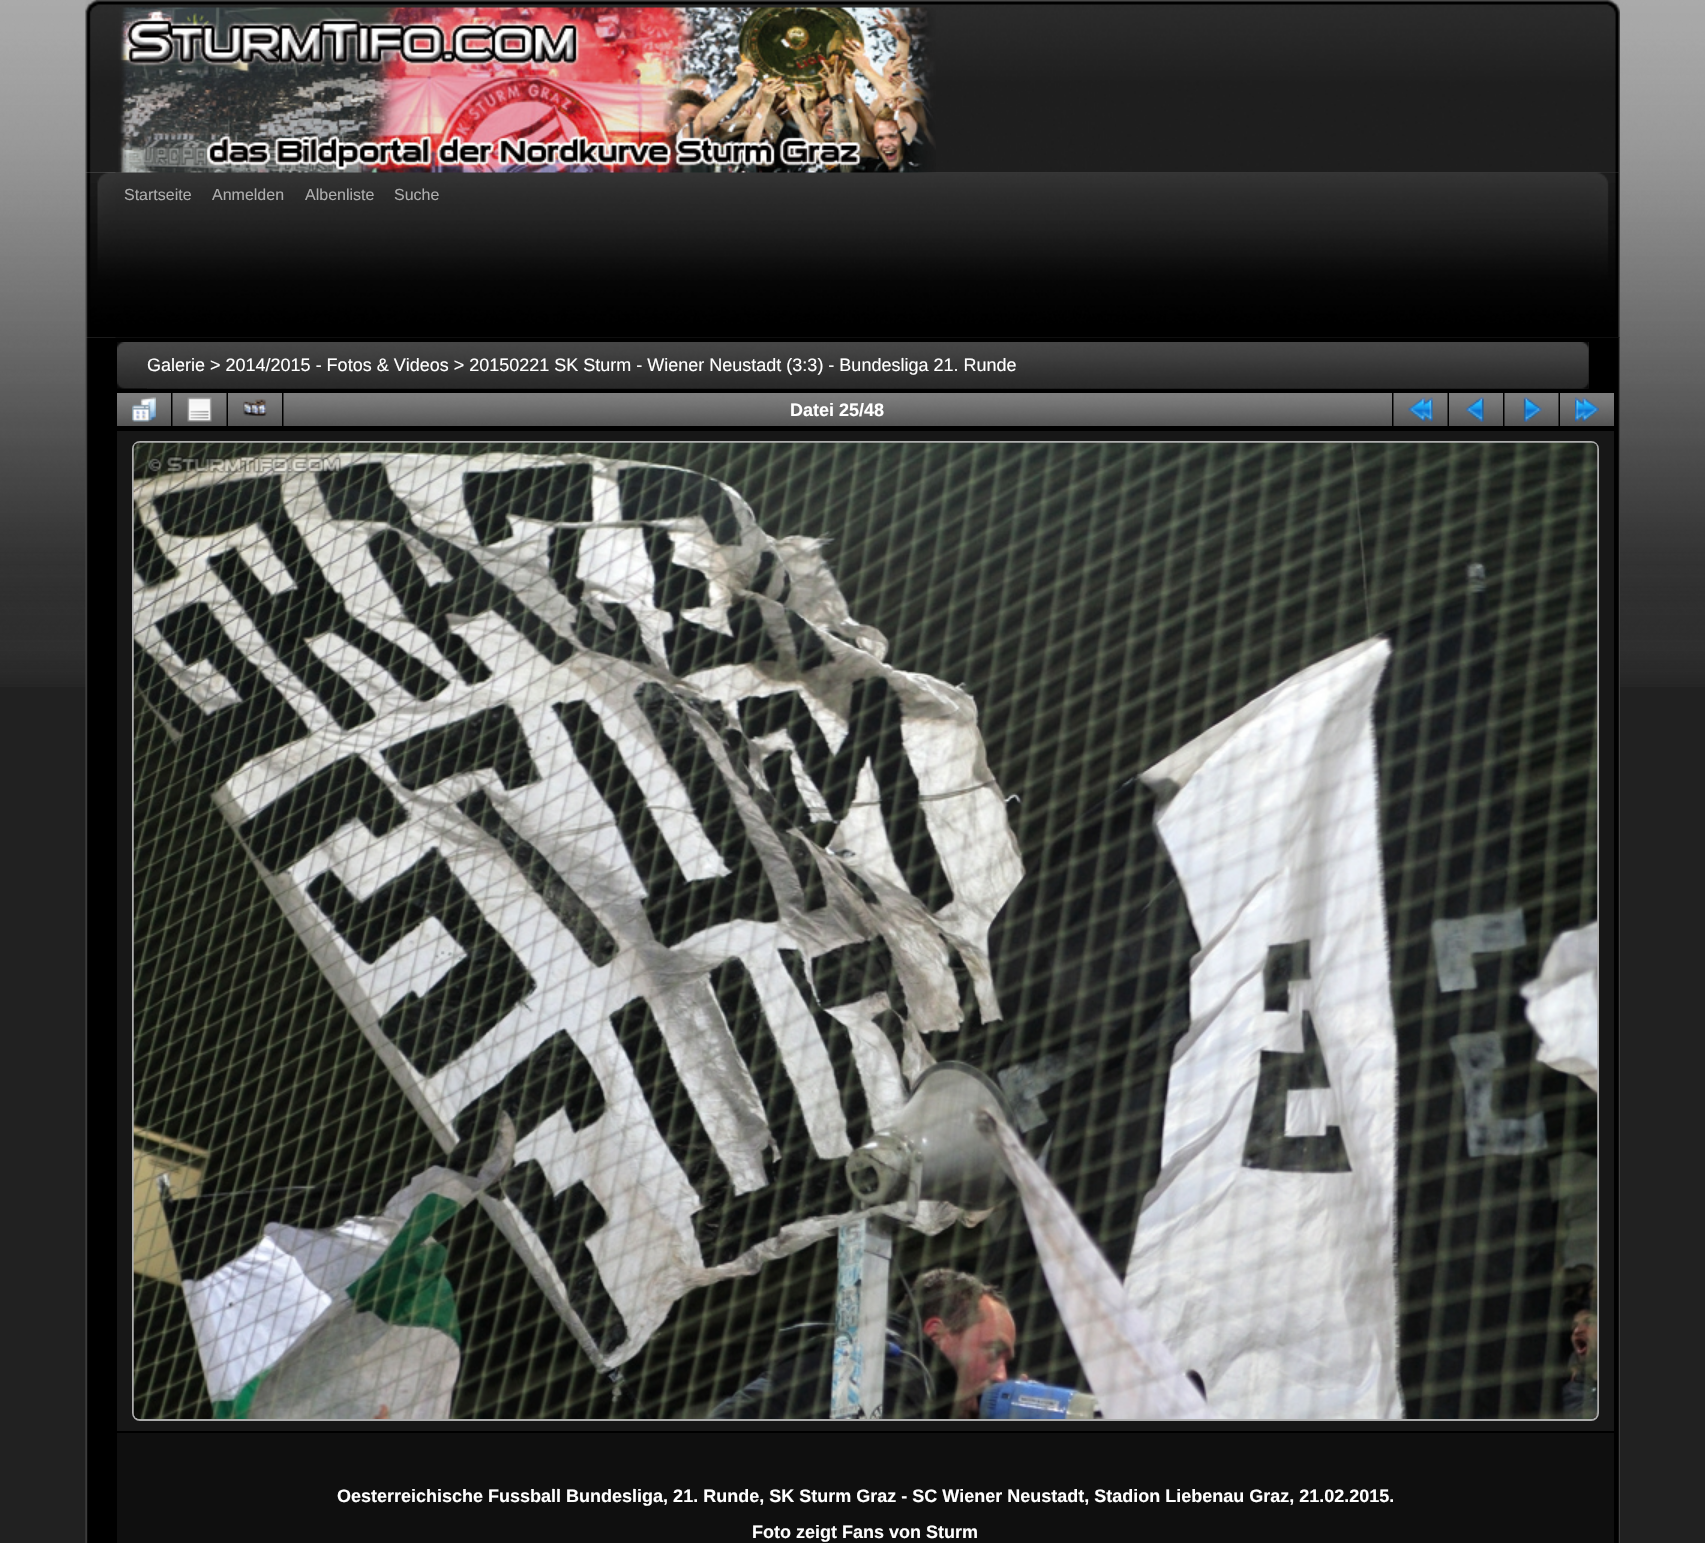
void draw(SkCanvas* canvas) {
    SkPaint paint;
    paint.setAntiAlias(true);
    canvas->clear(0xFF212121);
    canvas->drawImageRect(SkImages::DeferredFromEncodedData(SkData::MakeFromFileName("img1.png")), SkRect::MakeXYWH(0, 0, 1705, 687), SkSamplingOptions());
    canvas->drawImageRect(SkImages::DeferredFromEncodedData(SkData::MakeFromFileName("img2.png")), SkRect::MakeXYWH(85, 0, 1535, 173), SkSamplingOptions());
    canvas->drawImageRect(SkImages::DeferredFromEncodedData(SkData::MakeFromFileName("img3.png")), SkRect::MakeXYWH(115, 0, 1505, 173), SkSamplingOptions());
    canvas->drawImageRect(SkImages::DeferredFromEncodedData(SkData::MakeFromFileName("img5.png")), SkRect::MakeXYWH(85, 172, 1535, 166), SkSamplingOptions());
    canvas->drawImageRect(SkImages::DeferredFromEncodedData(SkData::MakeFromFileName("img6.png")), SkRect::MakeXYWH(115, 172, 1505, 166), SkSamplingOptions());
    canvas->drawImageRect(SkImages::DeferredFromEncodedData(SkData::MakeFromFileName("img4.png")), SkRect::MakeXYWH(118, 7, 818, 166), SkSamplingOptions());
    SkFont font1(fontMgr->matchFamilyStyle("Liberation Sans", SkFontStyle::Normal()), 16);
    font1.setSubpixel(true);
    paint.setColor(0xFFADADAD);
    canvas->drawString("Startseite", 124, 200, font1, paint);
    canvas->drawString("Anmelden", 212, 200, font1, paint);
    canvas->drawString("Albenliste", 305, 200, font1, paint);
    canvas->drawString("Suche", 394, 200, font1, paint);
    canvas->drawImageRect(SkImages::DeferredFromEncodedData(SkData::MakeFromFileName("img7.png")), SkRect::MakeXYWH(85, 337, 1535, 1206), SkSamplingOptions());
    canvas->drawImageRect(SkImages::DeferredFromEncodedData(SkData::MakeFromFileName("img8.png")), SkRect::MakeXYWH(1618, 337, 2, 1206), SkSamplingOptions());
    canvas->drawImageRect(SkImages::DeferredFromEncodedData(SkData::MakeFromFileName("img9.png")), SkRect::MakeXYWH(117, 342, 1472, 47), SkSamplingOptions());
    canvas->drawImageRect(SkImages::DeferredFromEncodedData(SkData::MakeFromFileName("img10.png")), SkRect::MakeXYWH(147, 342, 1442, 47), SkSamplingOptions());
    SkFont font2(fontMgr->matchFamilyStyle("Liberation Sans", SkFontStyle::Normal()), 18);
    font2.setSubpixel(true);
    paint.setColor(0xFFFFFFFF);
    canvas->drawString("Galerie > 2014/2015 - Fotos & Videos > 20150221 SK Sturm - Wiener Neustadt (3:3) - Bundesliga 21. Runde", 147, 371, font2, paint);
    canvas->drawImageRect(SkImages::DeferredFromEncodedData(SkData::MakeFromFileName("img11.png")), SkRect::MakeXYWH(117, 393, 54, 33), SkSamplingOptions());
    canvas->drawImageRect(SkImages::DeferredFromEncodedData(SkData::MakeFromFileName("img12.png")), SkRect::MakeXYWH(132, 397, 24, 25), SkSamplingOptions());
    canvas->drawImageRect(SkImages::DeferredFromEncodedData(SkData::MakeFromFileName("img13.png")), SkRect::MakeXYWH(172, 393, 55, 33), SkSamplingOptions());
    canvas->drawImageRect(SkImages::DeferredFromEncodedData(SkData::MakeFromFileName("img14.png")), SkRect::MakeXYWH(187, 397, 25, 25), SkSamplingOptions());
    canvas->drawImageRect(SkImages::DeferredFromEncodedData(SkData::MakeFromFileName("img11.png")), SkRect::MakeXYWH(228, 393, 54, 33), SkSamplingOptions());
    canvas->drawImageRect(SkImages::DeferredFromEncodedData(SkData::MakeFromFileName("img15.png")), SkRect::MakeXYWH(243, 399, 24, 18), SkSamplingOptions());
    canvas->drawImageRect(SkImages::DeferredFromEncodedData(SkData::MakeFromFileName("img16.png")), SkRect::MakeXYWH(283, 393, 1109, 33), SkSamplingOptions());
    SkFont font3(fontMgr->matchFamilyStyle("Liberation Sans", SkFontStyle::Bold()), 18);
    font3.setSubpixel(true);
    canvas->drawString("Datei 25/48", 790, 416, font3, paint);
    canvas->drawImageRect(SkImages::DeferredFromEncodedData(SkData::MakeFromFileName("img17.png")), SkRect::MakeXYWH(1393, 393, 55, 33), SkSamplingOptions());
    canvas->drawImageRect(SkImages::DeferredFromEncodedData(SkData::MakeFromFileName("img18.png")), SkRect::MakeXYWH(1408, 397, 25, 25), SkSamplingOptions());
    canvas->drawImageRect(SkImages::DeferredFromEncodedData(SkData::MakeFromFileName("img11.png")), SkRect::MakeXYWH(1449, 393, 54, 33), SkSamplingOptions());
    canvas->drawImageRect(SkImages::DeferredFromEncodedData(SkData::MakeFromFileName("img19.png")), SkRect::MakeXYWH(1465, 397, 19, 25), SkSamplingOptions());
    canvas->drawImageRect(SkImages::DeferredFromEncodedData(SkData::MakeFromFileName("img20.png")), SkRect::MakeXYWH(1504, 393, 55, 33), SkSamplingOptions());
    canvas->drawImageRect(SkImages::DeferredFromEncodedData(SkData::MakeFromFileName("img21.png")), SkRect::MakeXYWH(1523, 397, 20, 25), SkSamplingOptions());
    canvas->drawImageRect(SkImages::DeferredFromEncodedData(SkData::MakeFromFileName("img11.png")), SkRect::MakeXYWH(1560, 393, 54, 33), SkSamplingOptions());
    canvas->drawImageRect(SkImages::DeferredFromEncodedData(SkData::MakeFromFileName("img22.png")), SkRect::MakeXYWH(1575, 397, 24, 25), SkSamplingOptions());
    paint.setColor(0xFF171717);
    canvas->drawRect(SkRect::MakeXYWH(117, 431, 1497, 1000), paint);
    paint.setStyle(SkPaint::kStroke_Style);
    paint.setStrokeWidth(2);
    paint.setColor(0xFFADADAD);
    canvas->drawRoundRect(SkRect::MakeXYWH(133, 442, 1465, 978), 7, 7, paint);
    canvas->drawImageRect(SkImages::DeferredFromEncodedData(SkData::MakeFromFileName("img23.png")), SkRect::MakeXYWH(133, 442, 1465, 977), SkSamplingOptions());
    paint.setStyle(SkPaint::kFill_Style);
    paint.setColor(0xFF0F0F0F);
    canvas->drawRect(SkRect::MakeXYWH(117, 1433, 1497, 110), paint);
    paint.setColor(0xFFFFFFFF);
    canvas->drawString("Oesterreichische Fussball Bundesliga, 21. Runde, SK Sturm Graz - SC Wiener Neustadt, Stadion Liebenau Graz, 21.02.2015.", 337, 1502, font3, paint);
    canvas->drawString("Foto zeigt Fans von Sturm", 752, 1538, font3, paint);
}
